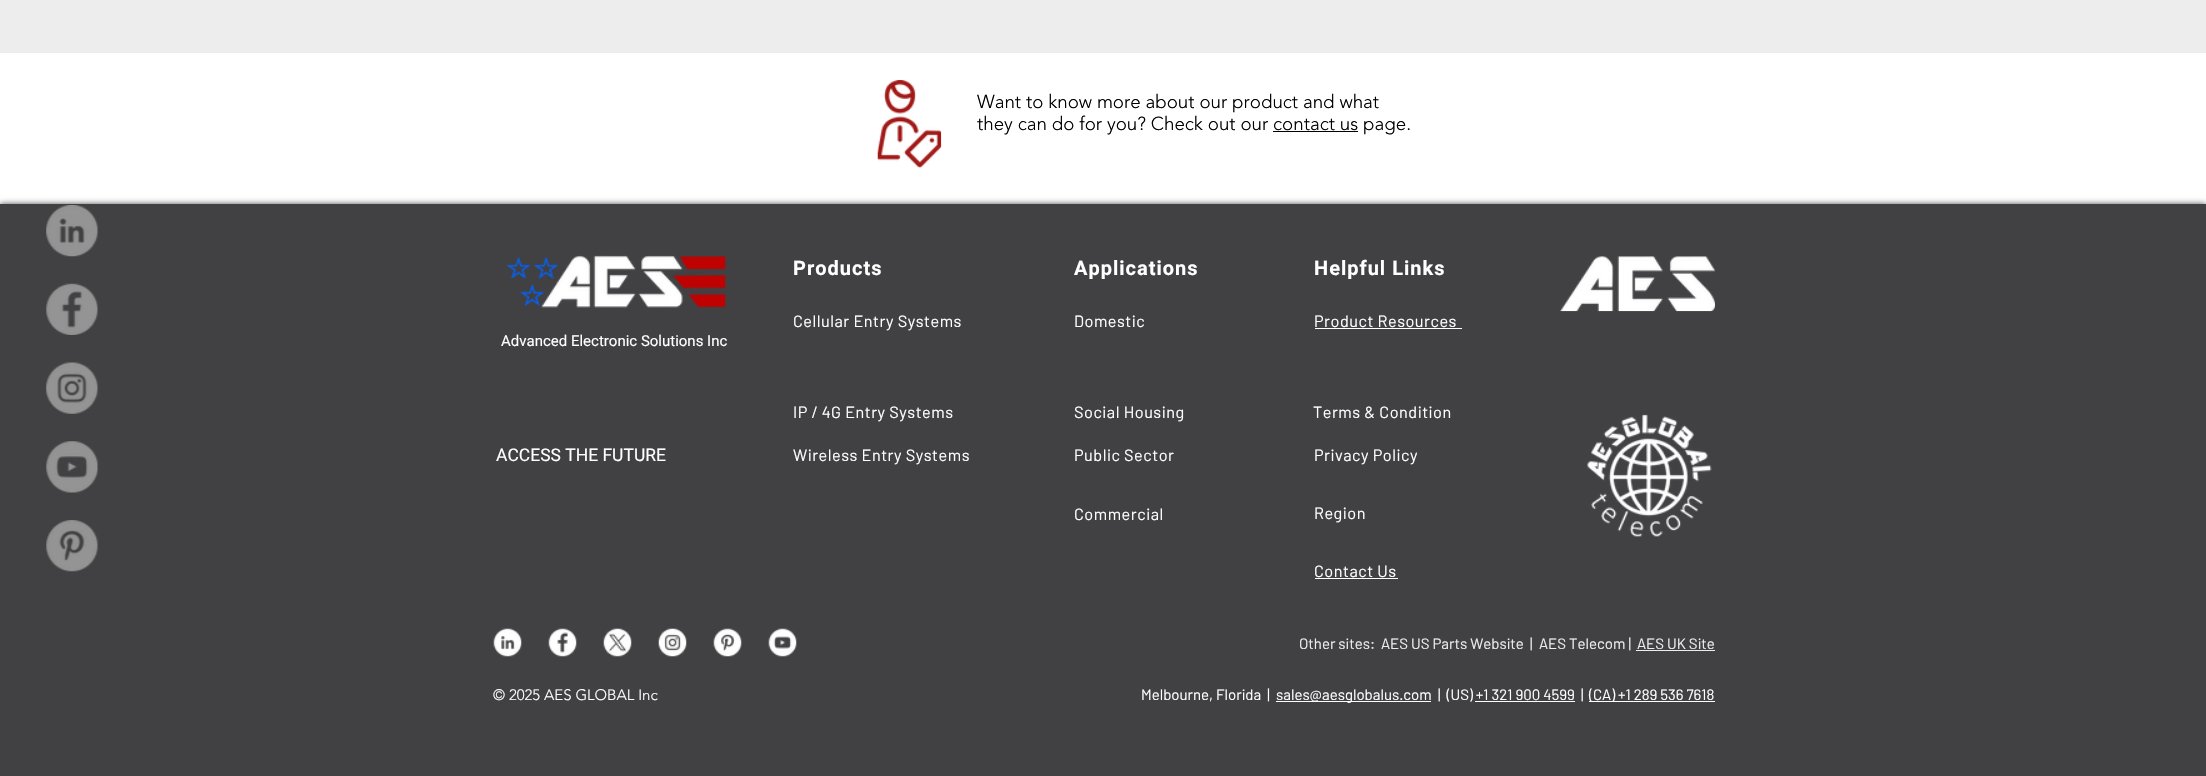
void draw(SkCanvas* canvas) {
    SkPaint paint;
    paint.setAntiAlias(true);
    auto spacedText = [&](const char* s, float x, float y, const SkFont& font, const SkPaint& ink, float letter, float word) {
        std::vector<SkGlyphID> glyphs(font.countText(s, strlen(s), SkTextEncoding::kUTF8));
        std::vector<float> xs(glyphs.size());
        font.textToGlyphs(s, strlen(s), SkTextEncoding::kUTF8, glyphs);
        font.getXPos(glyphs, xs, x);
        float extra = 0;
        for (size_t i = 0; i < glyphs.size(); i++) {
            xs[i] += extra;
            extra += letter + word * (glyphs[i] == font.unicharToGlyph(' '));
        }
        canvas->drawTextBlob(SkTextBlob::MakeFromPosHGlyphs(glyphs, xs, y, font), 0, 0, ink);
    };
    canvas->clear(0xFFFFFFFF);
    paint.setColor(0xFFEDEDED);
    canvas->drawRect(SkRect::MakeXYWH(0, 0, 2206, 53), paint);
    canvas->drawImageRect(SkImages::DeferredFromEncodedData(SkData::MakeFromFileName("img1.png")), SkRect::MakeXYWH(877, 80, 65, 88), SkSamplingOptions());
    SkFont font1(fontMgr->matchFamilyStyle("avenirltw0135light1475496", SkFontStyle(300, SkFontStyle::kNormal_Width, SkFontStyle::kUpright_Slant)), 18.75f);
    font1.setSubpixel(true);
    paint.setColor(0xFF000000);
    canvas->drawString("Want to know more about our product and what", 977, 108, font1, paint);
    canvas->drawString("they can do for you? Check out our contact us page.", 977, 130, font1, paint);
    canvas->drawRect(SkRect::MakeXYWH(1273, 131, 85, 1), paint);
    paint.setColor(0xB3000000);
    paint.setMaskFilter(SkMaskFilter::MakeBlur(kNormal_SkBlurStyle, 3));
    canvas->drawRect(SkRect::MakeXYWH(0, 204, 2206, 572), paint);
    paint.setMaskFilter(nullptr);
    paint.setColor(0xFF414042);
    canvas->drawRect(SkRect::MakeXYWH(0, 204, 2206, 572), paint);
    canvas->drawImageRect(SkImages::DeferredFromEncodedData(SkData::MakeFromFileName("img2.png")), SkRect::MakeXYWH(46, 205, 53, 52), SkSamplingOptions());
    canvas->drawImageRect(SkImages::DeferredFromEncodedData(SkData::MakeFromFileName("img3.png")), SkRect::MakeXYWH(46, 283, 53, 52), SkSamplingOptions());
    canvas->drawImageRect(SkImages::DeferredFromEncodedData(SkData::MakeFromFileName("img4.png")), SkRect::MakeXYWH(46, 362, 53, 52), SkSamplingOptions());
    canvas->drawImageRect(SkImages::DeferredFromEncodedData(SkData::MakeFromFileName("img5.png")), SkRect::MakeXYWH(46, 441, 53, 52), SkSamplingOptions());
    canvas->drawImageRect(SkImages::DeferredFromEncodedData(SkData::MakeFromFileName("img6.png")), SkRect::MakeXYWH(46, 520, 53, 52), SkSamplingOptions());
    canvas->drawImageRect(SkImages::DeferredFromEncodedData(SkData::MakeFromFileName("img7.png")), SkRect::MakeXYWH(506, 255, 221, 53), SkSamplingOptions());
    SkFont font2(fontMgr->matchFamilyStyle("Roboto", SkFontStyle::Bold()), 20);
    font2.setSubpixel(true);
    paint.setColor(0xFFFFFFFF);
    spacedText("Products", 793, 275, font2, paint, 1, 0);
    spacedText("Applications", 1074, 275, font2, paint, 1, 0);
    spacedText("Helpful Links", 1314, 275, font2, paint, 1, 0);
    canvas->drawImageRect(SkImages::DeferredFromEncodedData(SkData::MakeFromFileName("img8.png")), SkRect::MakeXYWH(1560, 256, 155, 56), SkSamplingOptions());
    SkFont font3(fontMgr->matchFamilyStyle("Barlow", SkFontStyle::Normal()), 16.25f);
    font3.setSubpixel(true);
    spacedText("Cellular Entry Systems", 793, 327, font3, paint, 0.5f, 0);
    spacedText("Domestic", 1074, 327, font3, paint, 0.5f, 0);
    spacedText("Product Resources", 1314, 327, font3, paint, 0.5f, 0);
    canvas->drawRect(SkRect::MakeXYWH(1315, 328, 147, 1), paint);
    SkFont font4(fontMgr->matchFamilyStyle("Roboto", SkFontStyle::Normal()), 15);
    font4.setSubpixel(true);
    canvas->drawString("Advanced Electronic Solutions Inc", 501, 346, font4, paint);
    spacedText("IP / 4G Entry Systems", 793, 418, font3, paint, 0.5f, 0);
    spacedText("Social Housing", 1074, 418, font3, paint, 0.5f, 0);
    spacedText("Terms & Condition", 1313, 418, font3, paint, 0.5f, 0);
    SkFont font5(fontMgr->matchFamilyStyle("Roboto", SkFontStyle::Normal()), 17.5f);
    font5.setSubpixel(true);
    canvas->drawString("ACCESS THE FUTURE", 496, 461, font5, paint);
    spacedText("Wireless Entry Systems", 793, 461, font3, paint, 0.5f, 0);
    spacedText("Public Sector", 1074, 461, font3, paint, 0.5f, 0);
    spacedText("Privacy Policy", 1314, 461, font3, paint, 0.5f, 0);
    canvas->drawImageRect(SkImages::DeferredFromEncodedData(SkData::MakeFromFileName("img9.png")), SkRect::MakeXYWH(1587, 414, 125, 123), SkSamplingOptions());
    spacedText("Commercial", 1074, 520, font3, paint, 0.5f, 0);
    spacedText("Region", 1314, 519, font3, paint, 0.5f, 0);
    spacedText("Contact Us", 1314, 577, font3, paint, 0.5f, 0);
    canvas->drawRect(SkRect::MakeXYWH(1315, 578, 83, 1), paint);
    canvas->drawImageRect(SkImages::DeferredFromEncodedData(SkData::MakeFromFileName("img10.png")), SkRect::MakeXYWH(493, 628, 29, 29), SkSamplingOptions());
    canvas->drawImageRect(SkImages::DeferredFromEncodedData(SkData::MakeFromFileName("img11.png")), SkRect::MakeXYWH(548, 628, 29, 29), SkSamplingOptions());
    canvas->drawImageRect(SkImages::DeferredFromEncodedData(SkData::MakeFromFileName("img12.png")), SkRect::MakeXYWH(603, 628, 29, 29), SkSamplingOptions());
    canvas->drawImageRect(SkImages::DeferredFromEncodedData(SkData::MakeFromFileName("img13.png")), SkRect::MakeXYWH(658, 628, 29, 29), SkSamplingOptions());
    canvas->drawImageRect(SkImages::DeferredFromEncodedData(SkData::MakeFromFileName("img14.png")), SkRect::MakeXYWH(713, 628, 29, 29), SkSamplingOptions());
    canvas->drawImageRect(SkImages::DeferredFromEncodedData(SkData::MakeFromFileName("img15.png")), SkRect::MakeXYWH(768, 628, 29, 29), SkSamplingOptions());
    SkFont font6(fontMgr->matchFamilyStyle("Barlow", SkFontStyle::Normal()), 15);
    font6.setSubpixel(true);
    paint.setColor(0xFFEDEDED);
    canvas->drawString("Other sites:", 1299, 649, font6, paint);
    canvas->drawString("AES US Parts Website", 1381, 649, font6, paint);
    canvas->drawString("|", 1530, 649, font6, paint);
    canvas->drawString("AES Telecom |", 1539, 649, font6, paint);
    canvas->drawString("AES UK Site", 1637, 649, font6, paint);
    canvas->drawRect(SkRect::MakeXYWH(1636, 650, 79, 1), paint);
    SkFont font7(fontMgr->matchFamilyStyle("avenirltw0135light1475496", SkFontStyle(300, SkFontStyle::kNormal_Width, SkFontStyle::kUpright_Slant)), 15);
    font7.setSubpixel(true);
    paint.setColor(0xFFFFFFFF);
    canvas->drawString("© 2025 AES GLOBAL Inc", 493, 700, font7, paint);
    canvas->drawString("Melbourne, Florida  |", 1141, 700, font6, paint);
    canvas->drawRect(SkRect::MakeXYWH(1276, 701, 155, 1), paint);
    canvas->drawString("sales@aesglobalus.com", 1276, 700, font6, paint);
    canvas->drawString("|  (US) +1 321 900 4599", 1438, 700, font6, paint);
    canvas->drawRect(SkRect::MakeXYWH(1475, 701, 100, 1), paint);
    canvas->drawString("|", 1581, 700, font6, paint);
    canvas->drawRect(SkRect::MakeXYWH(1589, 701, 126, 1), paint);
    canvas->drawString("(CA) +1 289 536 7618", 1589, 700, font6, paint);
}
